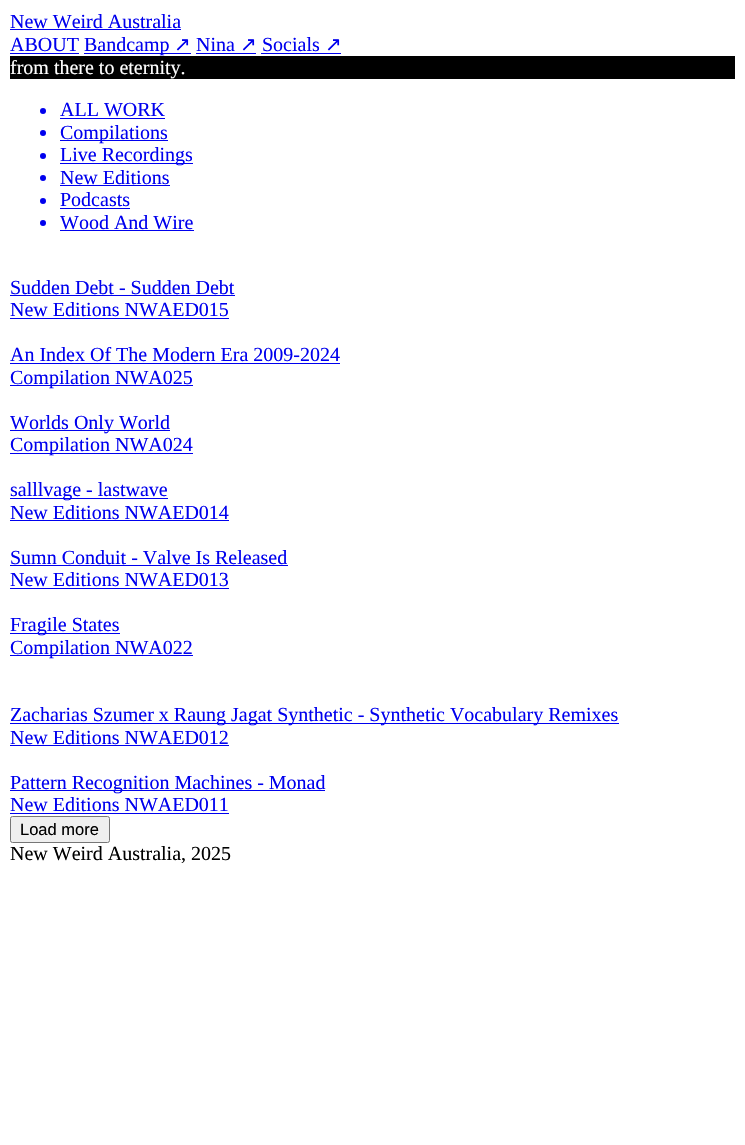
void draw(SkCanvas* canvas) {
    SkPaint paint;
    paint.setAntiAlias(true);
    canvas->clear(0xFFFFFFFF);
    SkFont font1(fontMgr->matchFamilyStyle("Liberation Serif", SkFontStyle::Normal()), 20);
    font1.setSubpixel(true);
    paint.setColor(0xFF0000EE);
    canvas->drawString("New Weird Australia", 10, 28, font1, paint);
    canvas->drawRect(SkRect::MakeXYWH(10, 29, 171, 1), paint);
    canvas->drawString("ABOUT", 10, 51, font1, paint);
    canvas->drawRect(SkRect::MakeXYWH(10, 53, 69, 1), paint);
    canvas->drawRect(SkRect::MakeXYWH(84, 53, 107, 1), paint);
    canvas->drawString("Bandcamp", 84, 51, font1, paint);
    SkFont font2(fontMgr->matchFamilyStyle("DejaVu Sans", SkFontStyle::Normal()), 20);
    font2.setSubpixel(true);
    canvas->drawString("↗", 174, 51, font2, paint);
    canvas->drawString("Nina", 196, 51, font1, paint);
    canvas->drawString("↗", 240, 51, font2, paint);
    canvas->drawRect(SkRect::MakeXYWH(196, 53, 60, 1), paint);
    canvas->drawString("Socials", 262, 51, font1, paint);
    canvas->drawString("↗", 325, 51, font2, paint);
    canvas->drawRect(SkRect::MakeXYWH(261, 53, 80, 1), paint);
    paint.setColor(0xFF000000);
    canvas->drawRect(SkRect::MakeXYWH(10, 56, 725, 23), paint);
    paint.setColor(0xFFFFFFFF);
    canvas->drawString("from there to eternity.", 10, 74, font1, paint);
    paint.setColor(0xFF0000EE);
    canvas->drawCircle(43, 111, 3, paint);
    canvas->drawString("ALL WORK", 60, 116, font1, paint);
    canvas->drawRect(SkRect::MakeXYWH(60, 118, 105, 1), paint);
    canvas->drawCircle(43, 133, 3, paint);
    canvas->drawRect(SkRect::MakeXYWH(60, 140, 108, 1), paint);
    canvas->drawString("Compilations", 60, 139, font1, paint);
    canvas->drawCircle(43, 156, 3, paint);
    canvas->drawRect(SkRect::MakeXYWH(60, 163, 133, 1), paint);
    canvas->drawString("Live Recordings", 60, 161, font1, paint);
    canvas->drawCircle(43, 178, 3, paint);
    canvas->drawString("New Editions", 60, 184, font1, paint);
    canvas->drawRect(SkRect::MakeXYWH(60, 185, 110, 1), paint);
    canvas->drawCircle(43, 201, 3, paint);
    canvas->drawString("Podcasts", 60, 206, font1, paint);
    canvas->drawRect(SkRect::MakeXYWH(60, 208, 70, 1), paint);
    canvas->drawCircle(43, 223, 3, paint);
    canvas->drawString("Wood And Wire", 60, 229, font1, paint);
    canvas->drawRect(SkRect::MakeXYWH(60, 230, 134, 1), paint);
    canvas->drawString("Sudden Debt - Sudden Debt", 10, 294, font1, paint);
    canvas->drawRect(SkRect::MakeXYWH(10, 295, 225, 1), paint);
    canvas->drawString("New Editions NWAED015", 10, 316, font1, paint);
    canvas->drawRect(SkRect::MakeXYWH(10, 318, 219, 1), paint);
    canvas->drawString("An Index Of The Modern Era 2009-2024", 10, 361, font1, paint);
    canvas->drawRect(SkRect::MakeXYWH(10, 363, 330, 1), paint);
    canvas->drawRect(SkRect::MakeXYWH(10, 385, 183, 1), paint);
    canvas->drawString("Compilation NWA025", 10, 384, font1, paint);
    canvas->drawRect(SkRect::MakeXYWH(10, 430, 160, 1), paint);
    canvas->drawString("Worlds Only World", 10, 429, font1, paint);
    canvas->drawRect(SkRect::MakeXYWH(10, 453, 183, 1), paint);
    canvas->drawString("Compilation NWA024", 10, 451, font1, paint);
    canvas->drawRect(SkRect::MakeXYWH(10, 498, 158, 1), paint);
    canvas->drawString("salllvage - lastwave", 10, 496, font1, paint);
    canvas->drawString("New Editions NWAED014", 10, 519, font1, paint);
    canvas->drawRect(SkRect::MakeXYWH(10, 520, 219, 1), paint);
    canvas->drawString("Sumn Conduit - Valve Is Released", 10, 564, font1, paint);
    canvas->drawRect(SkRect::MakeXYWH(10, 565, 278, 1), paint);
    canvas->drawString("New Editions NWAED013", 10, 586, font1, paint);
    canvas->drawRect(SkRect::MakeXYWH(10, 588, 219, 1), paint);
    canvas->drawRect(SkRect::MakeXYWH(10, 633, 110, 1), paint);
    canvas->drawString("Fragile States", 10, 631, font1, paint);
    canvas->drawRect(SkRect::MakeXYWH(10, 655, 183, 1), paint);
    canvas->drawString("Compilation NWA022", 10, 654, font1, paint);
    canvas->drawRect(SkRect::MakeXYWH(10, 723, 609, 1), paint);
    canvas->drawString("Zacharias Szumer x Raung Jagat Synthetic - Synthetic Vocabulary Remixes", 10, 721, font1, paint);
    canvas->drawString("New Editions NWAED012", 10, 744, font1, paint);
    canvas->drawRect(SkRect::MakeXYWH(10, 745, 219, 1), paint);
    canvas->drawRect(SkRect::MakeXYWH(10, 790, 315, 1), paint);
    canvas->drawString("Pattern Recognition Machines - Monad", 10, 789, font1, paint);
    canvas->drawString("New Editions NWAED011", 10, 811, font1, paint);
    canvas->drawRect(SkRect::MakeXYWH(10, 813, 219, 1), paint);
    paint.setColor(0xFFEFEFEF);
    canvas->drawRoundRect(SkRect::MakeXYWH(10.5f, 816.5f, 99, 26), 2, 2, paint);
    paint.setStyle(SkPaint::kStroke_Style);
    paint.setStrokeWidth(1);
    paint.setColor(0xFF767676);
    canvas->drawRoundRect(SkRect::MakeXYWH(10.5f, 816.5f, 99, 26), 2, 2, paint);
    SkFont font3(fontMgr->matchFamilyStyle("Liberation Sans", SkFontStyle::Normal()), 16.5f);
    font3.setSubpixel(true);
    paint.setStyle(SkPaint::kFill_Style);
    paint.setColor(0xFF000000);
    canvas->drawString("Load more", 20, 835, font3, paint);
    canvas->drawString("New Weird Australia, 2025", 10, 860, font1, paint);
}
